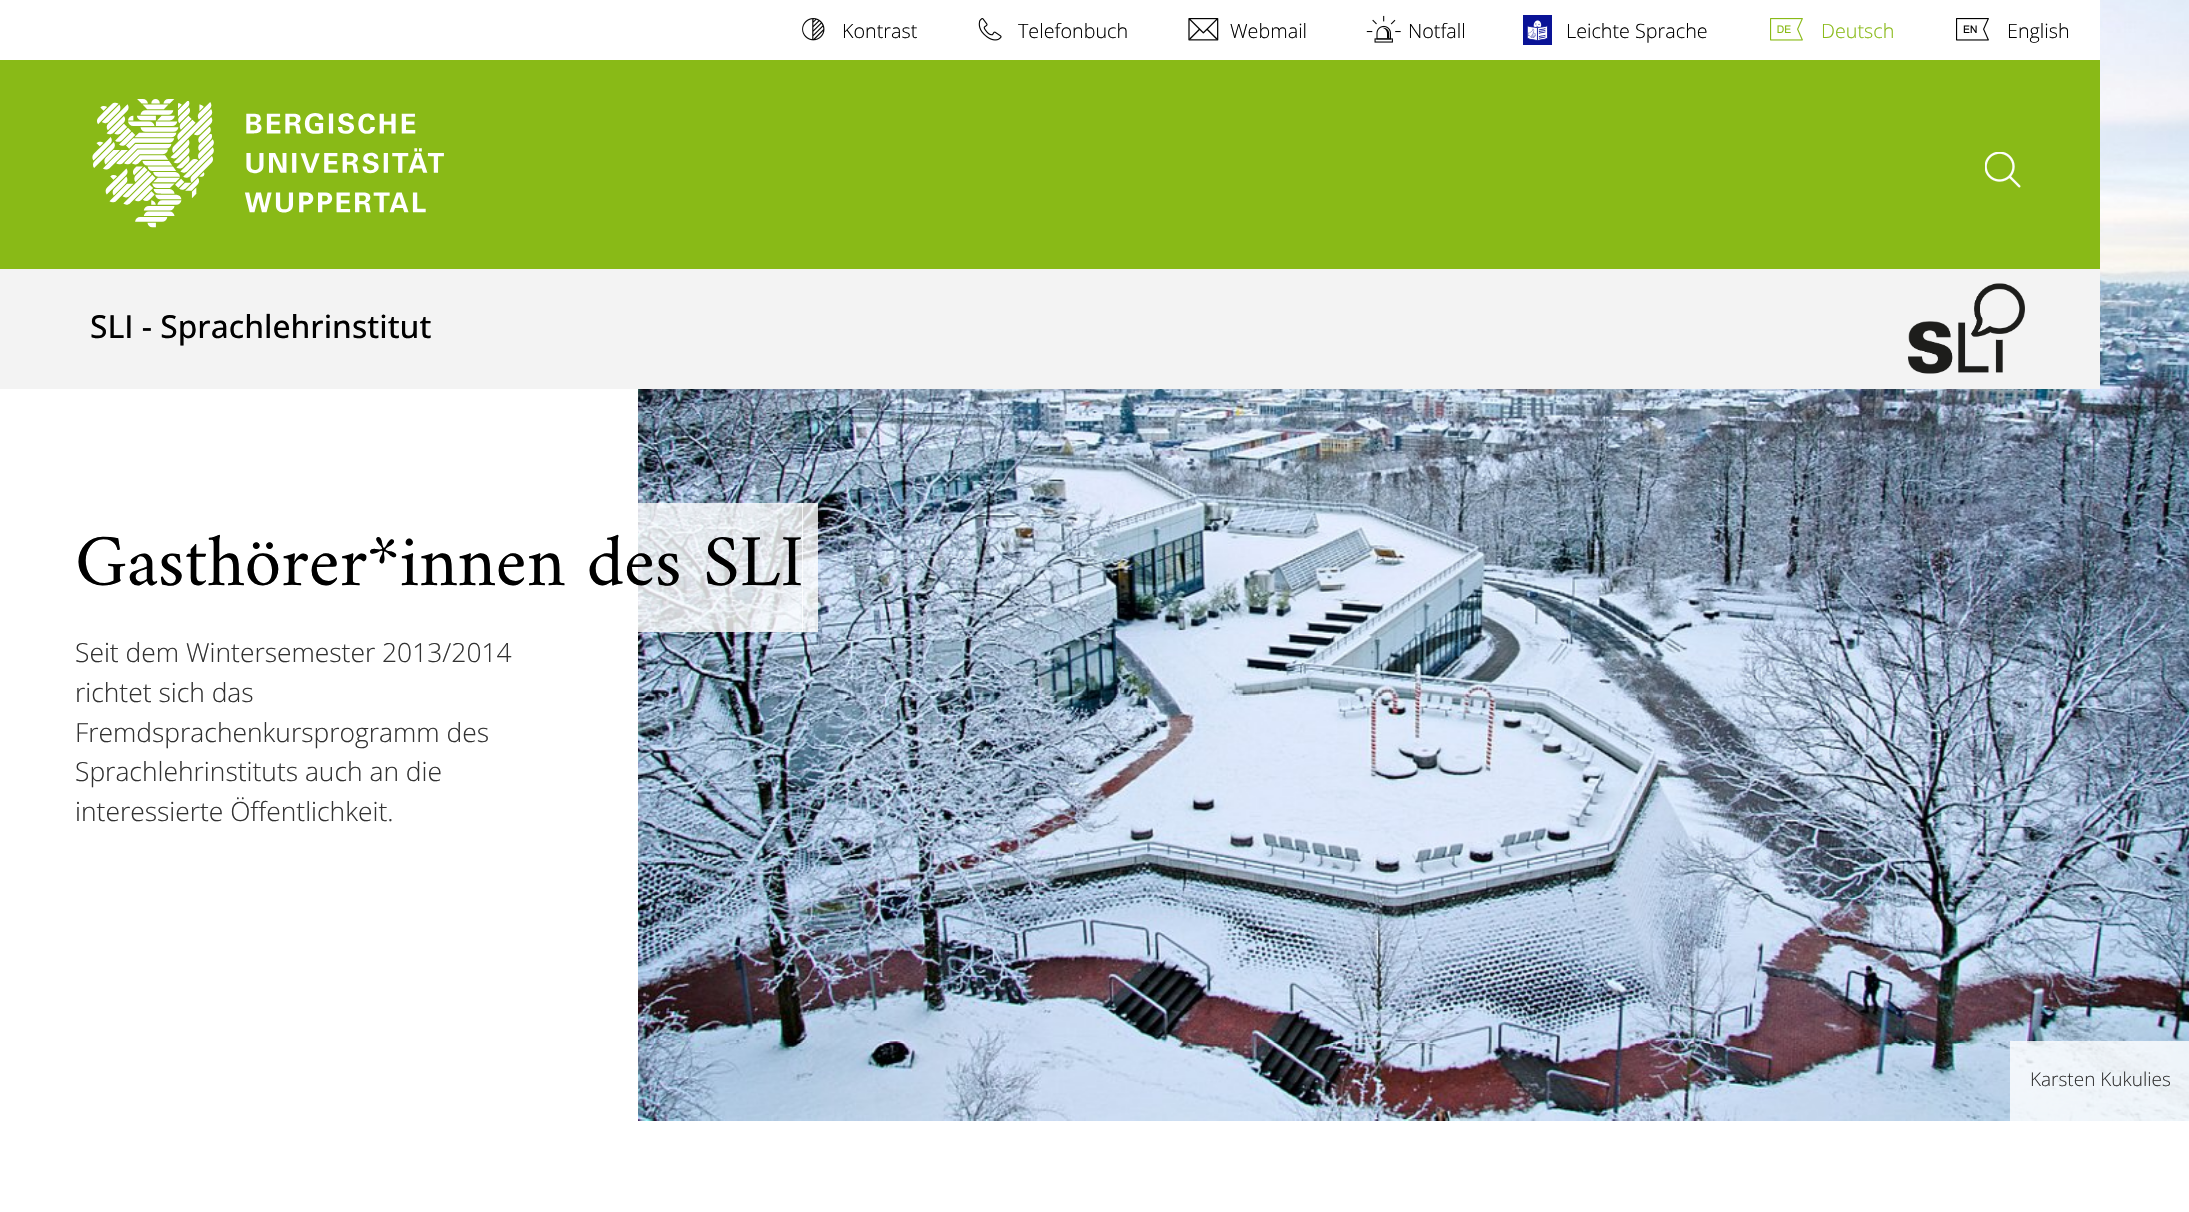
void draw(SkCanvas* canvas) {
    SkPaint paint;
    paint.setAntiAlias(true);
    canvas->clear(0xFFFFFFFF);
    canvas->drawImageRect(SkImages::DeferredFromEncodedData(SkData::MakeFromFileName("img11.png")), SkRect::MakeXYWH(638, 0, 1551, 1121), SkSamplingOptions());
    paint.setColor(0xFFFFFFFF);
    canvas->drawRect(SkRect::MakeXYWH(638, 0, 1462, 60), paint);
    canvas->drawImageRect(SkImages::DeferredFromEncodedData(SkData::MakeFromFileName("img1.png")), SkRect::MakeXYWH(802, 18, 23, 23), SkSamplingOptions());
    SkFont font1(fontMgr->matchFamilyStyle("Open Sans", SkFontStyle(300, SkFontStyle::kNormal_Width, SkFontStyle::kUpright_Slant)), 19.75f);
    font1.setSubpixel(true);
    paint.setColor(0xFF000000);
    canvas->drawString("Kontrast", 842, 38, font1, paint);
    canvas->drawImageRect(SkImages::DeferredFromEncodedData(SkData::MakeFromFileName("img2.png")), SkRect::MakeXYWH(978, 18, 24, 23), SkSamplingOptions());
    canvas->drawString("Telefonbuch", 1018, 38, font1, paint);
    canvas->drawImageRect(SkImages::DeferredFromEncodedData(SkData::MakeFromFileName("img3.png")), SkRect::MakeXYWH(1188, 18, 31, 23), SkSamplingOptions());
    canvas->drawString("Webmail", 1230, 38, font1, paint);
    canvas->drawImageRect(SkImages::DeferredFromEncodedData(SkData::MakeFromFileName("img4.png")), SkRect::MakeXYWH(1366, 15, 35, 28), SkSamplingOptions());
    canvas->drawString("Notfall", 1408, 38, font1, paint);
    canvas->drawImageRect(SkImages::DeferredFromEncodedData(SkData::MakeFromFileName("img5.png")), SkRect::MakeXYWH(1523, 15, 29, 30), SkSamplingOptions());
    canvas->drawString("Leichte Sprache", 1566, 38, font1, paint);
    canvas->drawImageRect(SkImages::DeferredFromEncodedData(SkData::MakeFromFileName("img6.png")), SkRect::MakeXYWH(1770, 18, 33, 23), SkSamplingOptions());
    paint.setColor(0xFF89BA17);
    canvas->drawString("Deutsch", 1821, 38, font1, paint);
    canvas->drawImageRect(SkImages::DeferredFromEncodedData(SkData::MakeFromFileName("img7.png")), SkRect::MakeXYWH(1956, 18, 33, 23), SkSamplingOptions());
    paint.setColor(0xFF000000);
    canvas->drawString("English", 2007, 38, font1, paint);
    paint.setColor(0xFF89BA17);
    canvas->drawRect(SkRect::MakeXYWH(0, 60, 2100, 209), paint);
    canvas->drawImageRect(SkImages::DeferredFromEncodedData(SkData::MakeFromFileName("img8.png")), SkRect::MakeXYWH(92, 99, 352, 129), SkSamplingOptions());
    canvas->drawImageRect(SkImages::DeferredFromEncodedData(SkData::MakeFromFileName("img9.png")), SkRect::MakeXYWH(1985, 152, 36, 36), SkSamplingOptions());
    paint.setColor(0xFFF3F3F3);
    canvas->drawRect(SkRect::MakeXYWH(0, 269, 2100, 120), paint);
    SkFont font2(fontMgr->matchFamilyStyle("Open Sans", SkFontStyle(500, SkFontStyle::kNormal_Width, SkFontStyle::kUpright_Slant)), 31.75f);
    font2.setSubpixel(true);
    paint.setColor(0xFF000000);
    canvas->drawString("SLI - Sprachlehrinstitut", 90, 338, font2, paint);
    canvas->drawImageRect(SkImages::DeferredFromEncodedData(SkData::MakeFromFileName("img10.png")), SkRect::MakeXYWH(1908, 283, 117, 91), SkSamplingOptions());
    paint.setColor(0xCCFFFFFF);
    canvas->drawPath(SkPathBuilder().moveTo(90, 632).lineTo(818, 632).lineTo(818, 503).lineTo(802, 503).lineTo(802, 632).close().detach(), paint);
    canvas->drawRect(SkRect::MakeXYWH(638, 503, 165, 129), paint);
    SkFont font3(fontMgr->matchFamilyStyle("Amiri", SkFontStyle::Normal()), 74);
    font3.setSubpixel(true);
    paint.setColor(0xFF000000);
    canvas->drawString("Gasthörer*innen des SLI", 75, 585, font3, paint);
    SkFont font4(fontMgr->matchFamilyStyle("Open Sans", SkFontStyle(300, SkFontStyle::kNormal_Width, SkFontStyle::kUpright_Slant)), 26.4f);
    font4.setSubpixel(true);
    paint.setColor(0xFF323232);
    canvas->drawString("Seit dem Wintersemester 2013/2014", 75, 662, font4, paint);
    canvas->drawString("richtet sich das", 75, 702, font4, paint);
    canvas->drawString("Fremdsprachenkursprogramm des", 75, 742, font4, paint);
    canvas->drawString("Sprachlehrinstituts auch an die", 75, 781, font4, paint);
    canvas->drawString("interessierte Öffentlichkeit.", 75, 821, font4, paint);
    paint.setColor(0xCCFFFFFF);
    canvas->drawRect(SkRect::MakeXYWH(2010, 1041, 179, 80), paint);
    SkFont font5(fontMgr->matchFamilyStyle("Open Sans", SkFontStyle(300, SkFontStyle::kNormal_Width, SkFontStyle::kUpright_Slant)), 19);
    font5.setSubpixel(true);
    paint.setColor(0xFF323232);
    canvas->drawString("Karsten Kukulies", 2030, 1086, font5, paint);
}
